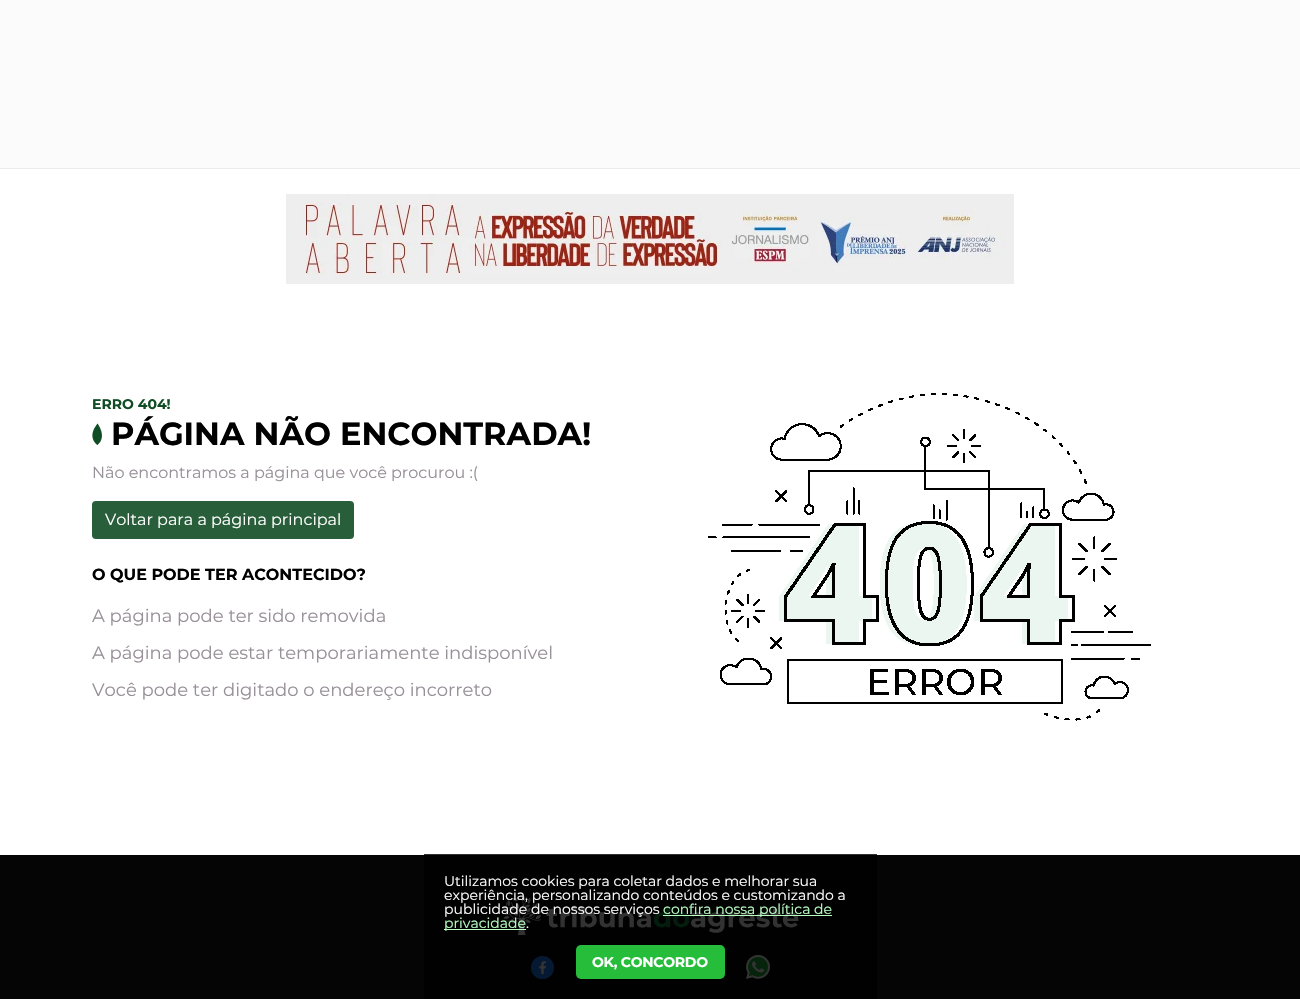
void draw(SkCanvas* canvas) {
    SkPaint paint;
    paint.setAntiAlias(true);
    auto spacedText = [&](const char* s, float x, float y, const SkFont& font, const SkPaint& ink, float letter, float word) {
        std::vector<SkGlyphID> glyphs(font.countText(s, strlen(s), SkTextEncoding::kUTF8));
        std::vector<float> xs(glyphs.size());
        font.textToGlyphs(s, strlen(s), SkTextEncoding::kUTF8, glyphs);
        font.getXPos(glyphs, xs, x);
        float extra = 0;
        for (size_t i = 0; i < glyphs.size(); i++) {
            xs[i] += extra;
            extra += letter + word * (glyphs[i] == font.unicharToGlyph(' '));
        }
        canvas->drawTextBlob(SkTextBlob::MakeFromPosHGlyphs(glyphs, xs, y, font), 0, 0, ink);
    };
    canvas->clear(0xFFFFFFFF);
    paint.setColor(0xFF333333);
    canvas->drawRect(SkRect::MakeXYWH(424, 854, 453, 1), paint);
    paint.setColor(0xFFFBFBFB);
    canvas->drawRect(SkRect::MakeXYWH(0, 0, 1300, 168), paint);
    paint.setColor(0xFFECECEC);
    canvas->drawRect(SkRect::MakeXYWH(0, 168, 1300, 1), paint);
    canvas->drawImageRect(SkImages::DeferredFromEncodedData(SkData::MakeFromFileName("img1.png")), SkRect::MakeXYWH(286, 194, 728, 90), SkSamplingOptions());
    SkFont font1(fontMgr->matchFamilyStyle("Montserrat", SkFontStyle::Bold()), 14);
    font1.setSubpixel(true);
    paint.setColor(0xFF104C24);
    canvas->drawString("ERRO 404!", 92, 409, font1, paint);
    canvas->drawPath(SkPathBuilder().moveTo(97.5f, 423.5f).cubicTo(97.5f, 423.5f, 107.5f, 436.5f, 97.5f, 445).cubicTo(97.5f, 445, 86, 438, 97.5f, 423.5f).close().detach(), paint);
    SkFont font2(fontMgr->matchFamilyStyle("Montserrat", SkFontStyle::Bold()), 32);
    font2.setSubpixel(true);
    paint.setColor(0xFF000000);
    canvas->drawString("PÁGINA NÃO ENCONTRADA!", 111, 445, font2, paint);
    SkFont font3(fontMgr->matchFamilyStyle("Montserrat", SkFontStyle::Normal()), 16);
    font3.setSubpixel(true);
    paint.setColor(0xFF989098);
    canvas->drawString("Não encontramos a página que você procurou :(", 92, 478, font3, paint);
    paint.setColor(0xFF285E3A);
    canvas->drawRoundRect(SkRect::MakeXYWH(92, 501, 262, 38), 4, 4, paint);
    paint.setColor(0xFFFFFFFF);
    canvas->drawString("Voltar para a página principal", 105, 525, font3, paint);
    SkFont font4(fontMgr->matchFamilyStyle("Montserrat", SkFontStyle::Bold()), 16);
    font4.setSubpixel(true);
    paint.setColor(0xFF000000);
    canvas->drawString("O QUE PODE TER ACONTECIDO?", 92, 580, font4, paint);
    SkFont font5(fontMgr->matchFamilyStyle("Montserrat", SkFontStyle::Normal()), 18);
    font5.setSubpixel(true);
    paint.setColor(0xFF989098);
    canvas->drawString("A página pode ter sido removida", 92, 622, font5, paint);
    canvas->drawString("A página pode estar temporariamente indisponível", 92, 659, font5, paint);
    canvas->drawString("Você pode ter digitado o endereço incorreto", 92, 696, font5, paint);
    canvas->drawImageRect(SkImages::DeferredFromEncodedData(SkData::MakeFromFileName("img2.png")), SkRect::MakeXYWH(708, 393, 443, 328), SkSamplingOptions());
    paint.setColor(0xFF050505);
    canvas->drawRect(SkRect::MakeXYWH(0, 855, 1300, 144), paint);
    paint.setColor(0xFF010101);
    canvas->drawRect(SkRect::MakeXYWH(424, 855, 453, 144), paint);
    SkFont font6(fontMgr->matchFamilyStyle("Montserrat", SkFontStyle::Normal()), 14);
    font6.setSubpixel(true);
    paint.setColor(0xFFFFFFFF);
    canvas->drawString("Utilizamos cookies para coletar dados e melhorar sua", 444, 886, font6, paint);
    canvas->drawImageRect(SkImages::DeferredFromEncodedData(SkData::MakeFromFileName("img3.png")), SkRect::MakeXYWH(502, 895, 297, 40), SkSamplingOptions());
    canvas->drawString("experiência, personalizando conteúdos e customizando a", 444, 900, font6, paint);
    canvas->drawString("publicidade de nossos serviços", 444, 914, font6, paint);
    paint.setColor(0xFFB9FFC3);
    canvas->drawRect(SkRect::MakeXYWH(663, 915, 169, 1), paint);
    canvas->drawString("confira nossa política de", 663, 914, font6, paint);
    canvas->drawRect(SkRect::MakeXYWH(444, 929, 82, 1), paint);
    canvas->drawString("privacidade", 444, 928, font6, paint);
    paint.setColor(0xFFFFFFFF);
    canvas->drawString(".", 526, 928, font6, paint);
    paint.setColor(0xFF26BD3B);
    canvas->drawRoundRect(SkRect::MakeXYWH(576, 945, 149, 34), 5, 5, paint);
    paint.setColor(0xFFFFFFFF);
    spacedText("OK, CONCORDO", 592, 967, font1, paint, -0.25f, 0);
    canvas->drawImageRect(SkImages::DeferredFromEncodedData(SkData::MakeFromFileName("img4.png")), SkRect::MakeXYWH(530, 956, 24, 23), SkSamplingOptions());
    canvas->drawImageRect(SkImages::DeferredFromEncodedData(SkData::MakeFromFileName("img5.png")), SkRect::MakeXYWH(746, 955, 24, 24), SkSamplingOptions());
}
